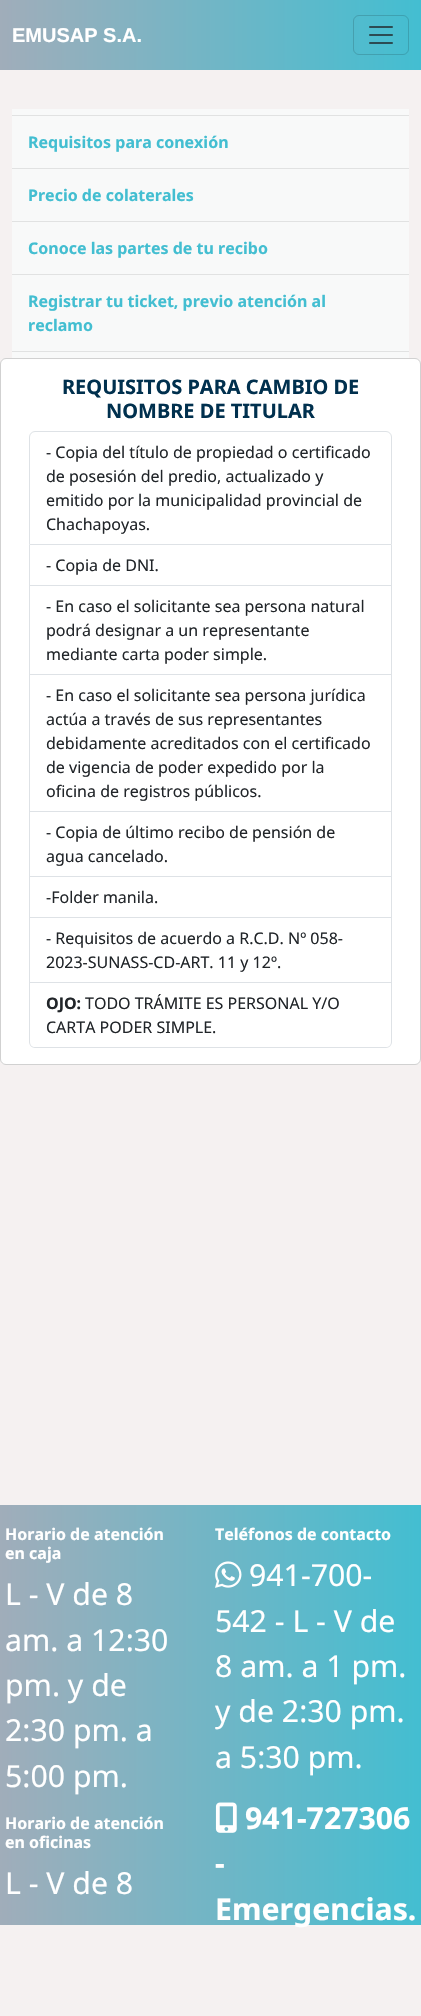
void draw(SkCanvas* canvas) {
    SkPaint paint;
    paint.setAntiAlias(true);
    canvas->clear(0xFFF5F1F1);
    {
        const SkColor colors[] = {0xFFA0ADBA, 0xFF43BED1};
        const float stops[] = {0, 1};
        const SkPoint ends[] = {{0, 35}, {421, 35}};
        paint.setShader(SkGradientShader::MakeLinear(ends, colors, stops, 2, SkTileMode::kClamp));
        paint.setAlpha(255);
    }
    canvas->drawRect(SkRect::MakeXYWH(0, 0, 421, 70), paint);
    SkFont font1(fontMgr->matchFamilyStyle("Liberation Sans", SkFontStyle::Bold()), 20);
    font1.setSubpixel(true);
    paint.setShader(nullptr);
    paint.setColor(0xFFFFFFFF);
    canvas->drawString("EMUSAP S.A.", 12, 42, font1, paint);
    paint.setStyle(SkPaint::kStroke_Style);
    paint.setStrokeWidth(1);
    paint.setColor(0x26000000);
    canvas->drawRoundRect(SkRect::MakeXYWH(353.5f, 15.5f, 55, 39), 5.5f, 5.5f, paint);
    canvas->drawImageRect(SkImages::DeferredFromEncodedData(SkData::MakeFromFileName("img1.png")), SkRect::MakeXYWH(369, 26, 24, 18), SkSamplingOptions());
    paint.setStyle(SkPaint::kFill_Style);
    paint.setColor(0xFFF8F9F9);
    canvas->drawRect(SkRect::MakeXYWH(12, 109, 397, 249), paint);
    paint.setColor(0xFFE1E2E2);
    canvas->drawRect(SkRect::MakeXYWH(12, 115, 397, 1), paint);
    SkFont font2(fontMgr->matchFamilyStyle("Noto Sans", SkFontStyle::Bold()), 16);
    font2.setSubpixel(true);
    paint.setColor(0xFF43BED1);
    canvas->drawString("Requisitos para conexión", 28, 148, font2, paint);
    paint.setColor(0xFFE1E2E2);
    canvas->drawRect(SkRect::MakeXYWH(12, 168, 397, 1), paint);
    paint.setColor(0xFF43BED1);
    canvas->drawString("Precio de colaterales", 28, 201, font2, paint);
    paint.setColor(0xFFE1E2E2);
    canvas->drawRect(SkRect::MakeXYWH(12, 221, 397, 1), paint);
    paint.setColor(0xFF43BED1);
    canvas->drawString("Conoce las partes de tu recibo", 28, 254, font2, paint);
    paint.setColor(0xFFE1E2E2);
    canvas->drawRect(SkRect::MakeXYWH(12, 274, 397, 1), paint);
    paint.setColor(0xFF43BED1);
    canvas->drawString("Registrar tu ticket, previo atención al", 28, 307, font2, paint);
    canvas->drawString("reclamo", 28, 331, font2, paint);
    paint.setColor(0xFFE1E2E2);
    canvas->drawRect(SkRect::MakeXYWH(12, 351, 397, 1), paint);
    paint.setColor(0xFFFFFFFF);
    canvas->drawRoundRect(SkRect::MakeXYWH(0, 358, 421, 707), 6, 6, paint);
    paint.setStyle(SkPaint::kStroke_Style);
    paint.setColor(0x2E000000);
    canvas->drawRoundRect(SkRect::MakeXYWH(0.5f, 358.5f, 420, 706), 5.5f, 5.5f, paint);
    SkFont font3(fontMgr->matchFamilyStyle("Noto Sans", SkFontStyle::Bold()), 20);
    font3.setSubpixel(true);
    paint.setStyle(SkPaint::kFill_Style);
    paint.setColor(0xFF00304E);
    canvas->drawString("REQUISITOS PARA CAMBIO DE", 62, 394, font3, paint);
    canvas->drawString("NOMBRE DE TITULAR", 106, 418, font3, paint);
    paint.setStyle(SkPaint::kStroke_Style);
    paint.setColor(0xFFDEE2E6);
    canvas->drawPath(SkPathBuilder().moveTo(35, 431.5f).lineTo(386, 431.5f).cubicTo(389, 431.5f, 391.5f, 434, 391.5f, 437).lineTo(391.5f, 544.5f).lineTo(29.5f, 544.5f).lineTo(29.5f, 437).cubicTo(29.5f, 434, 32, 431.5f, 35, 431.5f).close().detach(), paint);
    SkFont font4(fontMgr->matchFamilyStyle("Noto Sans", SkFontStyle::Normal()), 16);
    font4.setSubpixel(true);
    paint.setStyle(SkPaint::kFill_Style);
    paint.setColor(0xFF212529);
    canvas->drawString("- Copia del título de propiedad o certificado", 46, 458, font4, paint);
    canvas->drawString("de posesión del predio, actualizado y", 46, 482, font4, paint);
    canvas->drawString("emitido por la municipalidad provincial de", 46, 506, font4, paint);
    canvas->drawString("Chachapoyas.", 46, 530, font4, paint);
    paint.setColor(0xFFDEE2E6);
    canvas->drawRect(SkRect::MakeXYWH(391, 545, 1, 438), paint);
    canvas->drawRect(SkRect::MakeXYWH(29, 585, 363, 1), paint);
    canvas->drawRect(SkRect::MakeXYWH(29, 545, 1, 41), paint);
    paint.setColor(0xFF212529);
    canvas->drawString("- Copia de DNI.", 46, 571, font4, paint);
    paint.setColor(0xFFDEE2E6);
    canvas->drawRect(SkRect::MakeXYWH(29, 674, 363, 1), paint);
    canvas->drawRect(SkRect::MakeXYWH(29, 586, 1, 89), paint);
    paint.setColor(0xFF212529);
    canvas->drawString("- En caso el solicitante sea persona natural", 46, 612, font4, paint);
    canvas->drawString("podrá designar a un representante", 46, 636, font4, paint);
    canvas->drawString("mediante carta poder simple.", 46, 660, font4, paint);
    paint.setColor(0xFFDEE2E6);
    canvas->drawRect(SkRect::MakeXYWH(29, 811, 363, 1), paint);
    canvas->drawRect(SkRect::MakeXYWH(29, 675, 1, 137), paint);
    paint.setColor(0xFF212529);
    canvas->drawString("- En caso el solicitante sea persona jurídica", 46, 701, font4, paint);
    canvas->drawString("actúa a través de sus representantes", 46, 725, font4, paint);
    canvas->drawString("debidamente acreditados con el certificado", 46, 749, font4, paint);
    canvas->drawString("de vigencia de poder expedido por la", 46, 773, font4, paint);
    canvas->drawString("oficina de registros públicos.", 46, 797, font4, paint);
    paint.setColor(0xFFDEE2E6);
    canvas->drawRect(SkRect::MakeXYWH(29, 876, 363, 1), paint);
    canvas->drawRect(SkRect::MakeXYWH(29, 812, 1, 65), paint);
    paint.setColor(0xFF212529);
    canvas->drawString("- Copia de último recibo de pensión de", 46, 838, font4, paint);
    canvas->drawString("agua cancelado.", 46, 862, font4, paint);
    paint.setColor(0xFFDEE2E6);
    canvas->drawRect(SkRect::MakeXYWH(29, 917, 363, 1), paint);
    canvas->drawRect(SkRect::MakeXYWH(29, 877, 1, 41), paint);
    paint.setColor(0xFF212529);
    canvas->drawString("-Folder manila.", 46, 903, font4, paint);
    paint.setColor(0xFFDEE2E6);
    canvas->drawRect(SkRect::MakeXYWH(29, 982, 363, 1), paint);
    canvas->drawRect(SkRect::MakeXYWH(29, 918, 1, 65), paint);
    paint.setColor(0xFF212529);
    canvas->drawString("- Requisitos de acuerdo a R.C.D. Nº 058-", 46, 944, font4, paint);
    canvas->drawString("2023-SUNASS-CD-ART. 11 y 12º.", 46, 968, font4, paint);
    paint.setColor(0xFFDEE2E6);
    canvas->drawPath(SkPathBuilder(SkPathFillType::kEvenOdd).moveTo(29, 983).lineTo(392, 983).lineTo(392, 1042).cubicTo(392, 1045, 389, 1048, 386, 1048).lineTo(35, 1048).cubicTo(32, 1048, 29, 1045, 29, 1042).close().moveTo(30, 983).lineTo(391, 983).lineTo(391, 1042).cubicTo(391, 1045, 389, 1047, 386, 1047).lineTo(35, 1047).cubicTo(32, 1047, 30, 1045, 30, 1042).close().detach(), paint);
    paint.setColor(0xFF212529);
    canvas->drawString("OJO:", 46, 1009, font2, paint);
    canvas->drawString("TODO TRÁMITE ES PERSONAL Y/O", 85, 1009, font4, paint);
    canvas->drawString("CARTA PODER SIMPLE.", 46, 1033, font4, paint);
    {
        const SkColor colors[] = {0xFFA0ADBA, 0xFF43BED1};
        const float stops[] = {0, 1};
        const SkPoint ends[] = {{0, 1715}, {421, 1715}};
        paint.setShader(SkGradientShader::MakeLinear(ends, colors, stops, 2, SkTileMode::kClamp));
        paint.setAlpha(255);
    }
    canvas->drawRect(SkRect::MakeXYWH(0, 1505, 421, 420), paint);
    paint.setShader(nullptr);
    paint.setColor(0xFFFFFFFF);
    canvas->drawString("Horario de atención", 5, 1540, font2, paint);
    canvas->drawString("en caja", 5, 1559, font2, paint);
    SkFont font5(fontMgr->matchFamilyStyle("Noto Sans", SkFontStyle::Normal()), 30.25f);
    font5.setSubpixel(true);
    canvas->drawString("L - V de 8", 5, 1605, font5, paint);
    canvas->drawString("am. a 12:30", 5, 1651, font5, paint);
    canvas->drawString("pm. y de", 5, 1696, font5, paint);
    canvas->drawString("2:30 pm. a", 5, 1741, font5, paint);
    canvas->drawString("5:00 pm.", 5, 1787, font5, paint);
    canvas->drawString("Horario de atención", 5, 1829, font2, paint);
    canvas->drawString("en oficinas", 5, 1848, font2, paint);
    canvas->drawString("L - V de 8", 5, 1894, font5, paint);
    canvas->drawString("Teléfonos de contacto", 215, 1540, font2, paint);
    canvas->drawImageRect(SkImages::DeferredFromEncodedData(SkData::MakeFromFileName("img2.png")), SkRect::MakeXYWH(215, 1561, 27, 27), SkSamplingOptions());
    canvas->drawString("941-700-", 249, 1586, font5, paint);
    canvas->drawString("542 - L - V de", 215, 1632, font5, paint);
    canvas->drawString("8 am. a 1 pm.", 215, 1677, font5, paint);
    canvas->drawString("y de 2:30 pm.", 215, 1722, font5, paint);
    canvas->drawString("a 5:30 pm.", 215, 1768, font5, paint);
    canvas->drawImageRect(SkImages::DeferredFromEncodedData(SkData::MakeFromFileName("img3.png")), SkRect::MakeXYWH(215, 1802, 22, 31), SkSamplingOptions());
    SkFont font6(fontMgr->matchFamilyStyle("Noto Sans", SkFontStyle::Bold()), 30.25f);
    font6.setSubpixel(true);
    canvas->drawString("941-727306", 245, 1829, font6, paint);
    canvas->drawString("-", 215, 1874, font6, paint);
    canvas->drawString("Emergencias.", 215, 1920, font6, paint);
}
